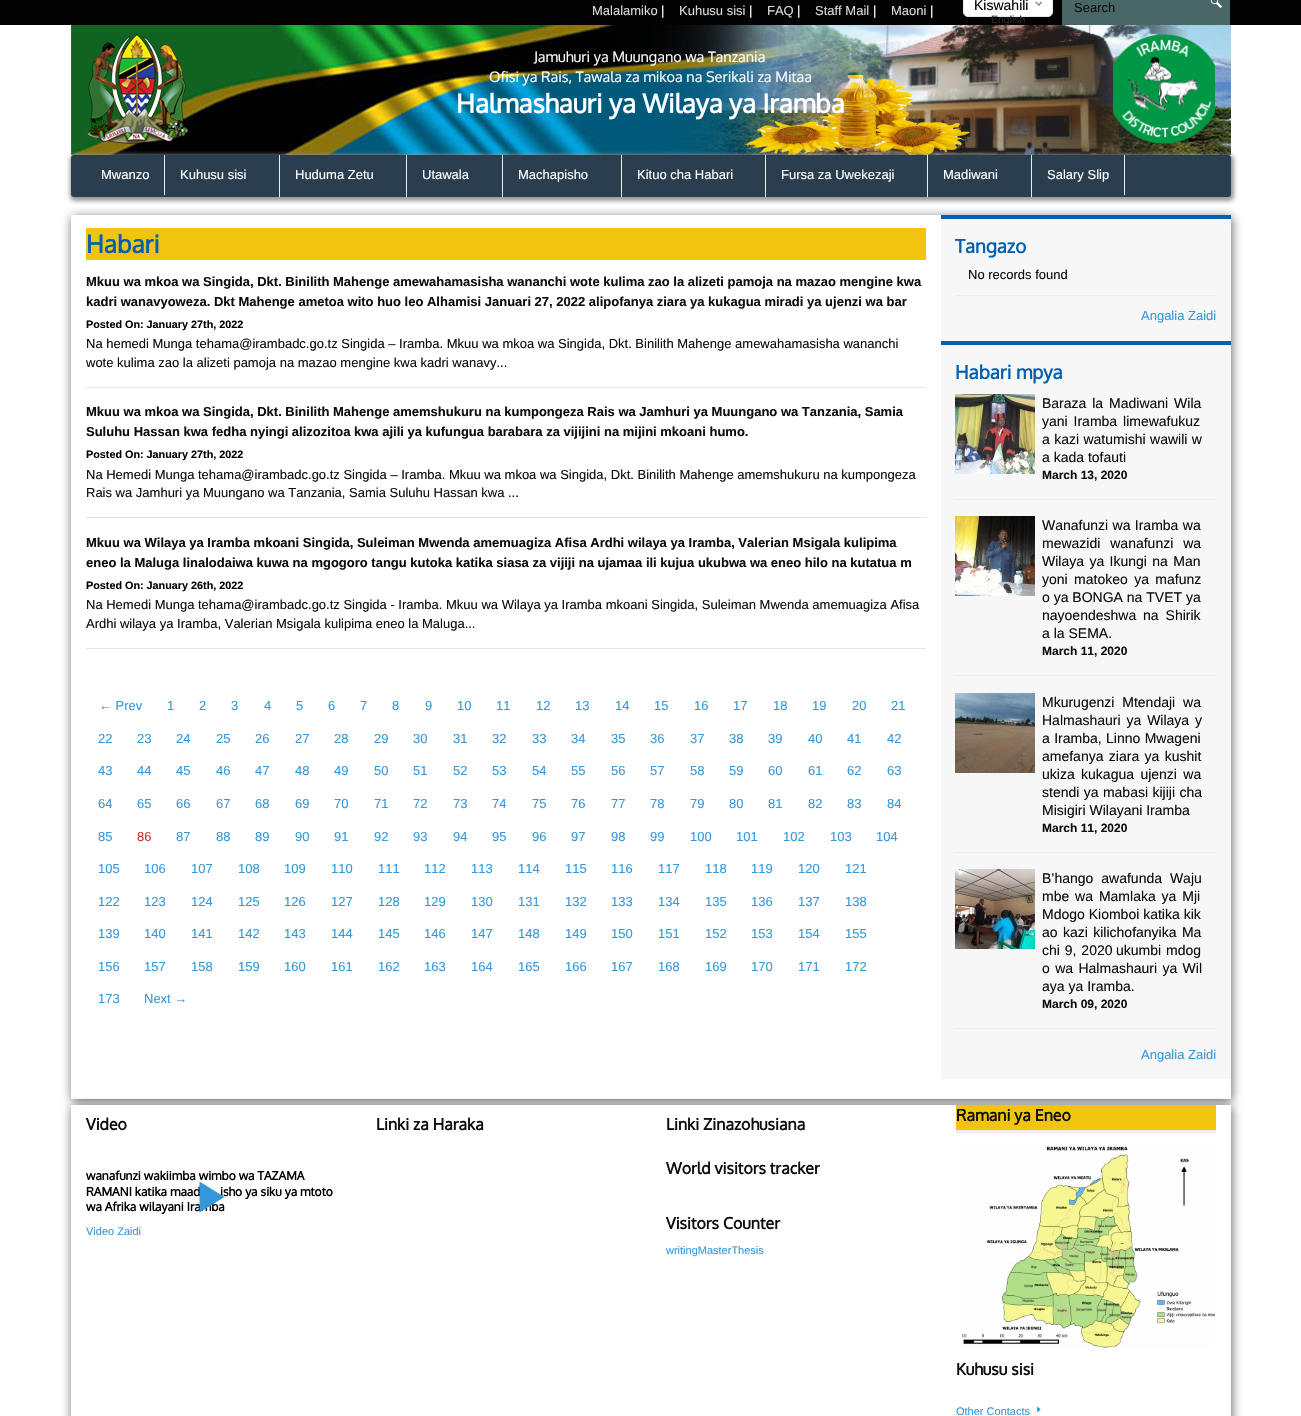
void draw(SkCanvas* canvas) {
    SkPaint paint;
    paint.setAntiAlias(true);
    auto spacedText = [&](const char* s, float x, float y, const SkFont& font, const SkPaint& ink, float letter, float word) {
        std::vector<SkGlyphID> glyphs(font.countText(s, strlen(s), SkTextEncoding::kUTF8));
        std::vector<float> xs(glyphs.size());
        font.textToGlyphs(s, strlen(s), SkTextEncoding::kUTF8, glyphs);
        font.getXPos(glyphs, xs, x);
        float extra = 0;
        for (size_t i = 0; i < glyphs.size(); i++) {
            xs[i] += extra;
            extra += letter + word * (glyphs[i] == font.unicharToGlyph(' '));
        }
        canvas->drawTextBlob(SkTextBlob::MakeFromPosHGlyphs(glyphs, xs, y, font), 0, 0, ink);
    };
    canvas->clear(0xFFFFFFFF);
    paint.setColor(0xFF030303);
    canvas->drawRect(SkRect::MakeXYWH(0, 0, 1301, 25), paint);
    SkFont font1(fontMgr->matchFamilyStyle("Liberation Sans", SkFontStyle::Normal()), 13);
    font1.setSubpixel(true);
    paint.setColor(0xFFD9D9D9);
    canvas->drawString("Malalamiko", 592, 15, font1, paint);
    paint.setColor(0xFFFFFFFF);
    canvas->drawString("|", 661, 15, font1, paint);
    paint.setColor(0xFFD9D9D9);
    canvas->drawString("Kuhusu sisi", 679, 15, font1, paint);
    paint.setColor(0xFFFFFFFF);
    canvas->drawString("|", 749, 15, font1, paint);
    paint.setColor(0xFFD9D9D9);
    canvas->drawString("FAQ", 767, 15, font1, paint);
    paint.setColor(0xFFFFFFFF);
    canvas->drawString("|", 797, 15, font1, paint);
    paint.setColor(0xFFD9D9D9);
    canvas->drawString("Staff Mail", 815, 15, font1, paint);
    paint.setColor(0xFFFFFFFF);
    canvas->drawString("|", 873, 15, font1, paint);
    paint.setColor(0xFFD9D9D9);
    canvas->drawString("Maoni", 891, 15, font1, paint);
    paint.setColor(0xFFFFFFFF);
    canvas->drawString("|", 930, 15, font1, paint);
    canvas->drawRoundRect(SkRect::MakeXYWH(963.5f, -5.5f, 89, 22), 4.5f, 4.5f, paint);
    paint.setStyle(SkPaint::kStroke_Style);
    paint.setStrokeWidth(1);
    paint.setColor(0xFFE8E8E8);
    canvas->drawRoundRect(SkRect::MakeXYWH(963.5f, -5.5f, 89, 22), 4.5f, 4.5f, paint);
    SkFont font2(fontMgr->matchFamilyStyle("Liberation Sans", SkFontStyle::Normal()), 14);
    font2.setSubpixel(true);
    paint.setStyle(SkPaint::kFill_Style);
    paint.setColor(0xFF000000);
    canvas->drawString("Kiswahili", 974, 10, font2, paint);
    paint.setColor(0xFF999999);
    canvas->drawPath(SkPathBuilder().moveTo(1041, 1.5f).lineTo(1042.5f, 2.5f).lineTo(1039, 6).lineTo(1037.5f, 5).close().detach(), paint);
    canvas->drawPath(SkPathBuilder().moveTo(1036.5f, 1.5f).lineTo(1040, 5).lineTo(1039, 6).lineTo(1035, 2.5f).close().detach(), paint);
    canvas->drawImageRect(SkImages::DeferredFromEncodedData(SkData::MakeFromFileName("img2.png")), SkRect::MakeXYWH(71, 25, 1160, 130), SkSamplingOptions());
    SkFont font3(fontMgr->matchFamilyStyle("Liberation Sans", SkFontStyle::Normal()), 10.5f);
    font3.setSubpixel(true);
    paint.setColor(0xFF252525);
    canvas->drawString("English", 991, 23, font3, paint);
    paint.setColor(0xFF4A6767);
    canvas->drawRect(SkRect::MakeXYWH(1062, 0, 168, 25), paint);
    paint.setColor(0xFF0A0E0E);
    canvas->drawString("Search", 1074, 12, font1, paint);
    canvas->drawImageRect(SkImages::DeferredFromEncodedData(SkData::MakeFromFileName("img1.png")), SkRect::MakeXYWH(1210, 0, 13, 9), SkSamplingOptions());
    canvas->drawImageRect(SkImages::DeferredFromEncodedData(SkData::MakeFromFileName("img3.png")), SkRect::MakeXYWH(87, 34, 101, 110), SkSamplingOptions());
    SkFont font4(fontMgr->matchFamilyStyle("Oxygen", SkFontStyle::Normal()), 14.4f);
    font4.setSubpixel(true);
    paint.setColor(0xFFFFFFFF);
    canvas->drawString("Jamuhuri ya Muungano wa Tanzania", 534, 62, font4, paint);
    canvas->drawString("Ofisi ya Rais, Tawala za mikoa na Serikali za Mitaa", 489, 82, font4, paint);
    SkFont font5(fontMgr->matchFamilyStyle("Oxygen", SkFontStyle::Bold()), 26);
    font5.setSubpixel(true);
    canvas->drawString("Halmashauri ya Wilaya ya Iramba", 456, 113, font5, paint);
    canvas->drawImageRect(SkImages::DeferredFromEncodedData(SkData::MakeFromFileName("img4.png")), SkRect::MakeXYWH(1113, 34, 102, 110), SkSamplingOptions());
    paint.setColor(0xFF999999);
    paint.setMaskFilter(SkMaskFilter::MakeBlur(kNormal_SkBlurStyle, 2));
    canvas->drawRoundRect(SkRect::MakeXYWH(70, 155, 1164, 46), 5, 5, paint);
    paint.setMaskFilter(nullptr);
    paint.setColor(0xFF2B3E50);
    canvas->drawRoundRect(SkRect::MakeXYWH(71, 155, 1160, 42), 3, 3, paint);
    paint.setColor(0xFFEEEEEE);
    canvas->drawRect(SkRect::MakeXYWH(164, 155, 1, 40), paint);
    paint.setColor(0xFFFFFFFF);
    canvas->drawString("Mwanzo", 101, 179, font1, paint);
    paint.setColor(0xFFEEEEEE);
    canvas->drawRect(SkRect::MakeXYWH(279, 155, 1, 42), paint);
    paint.setColor(0xFFFFFFFF);
    canvas->drawString("Kuhusu sisi", 180, 179, font1, paint);
    paint.setColor(0xFFEEEEEE);
    canvas->drawRect(SkRect::MakeXYWH(406, 155, 1, 42), paint);
    paint.setColor(0xFFFFFFFF);
    canvas->drawString("Huduma Zetu", 295, 179, font1, paint);
    paint.setColor(0xFFEEEEEE);
    canvas->drawRect(SkRect::MakeXYWH(502, 155, 1, 42), paint);
    paint.setColor(0xFFFFFFFF);
    canvas->drawString("Utawala", 422, 179, font1, paint);
    paint.setColor(0xFFEEEEEE);
    canvas->drawRect(SkRect::MakeXYWH(621, 155, 1, 42), paint);
    paint.setColor(0xFFFFFFFF);
    canvas->drawString("Machapisho", 518, 179, font1, paint);
    paint.setColor(0xFFEEEEEE);
    canvas->drawRect(SkRect::MakeXYWH(765, 155, 1, 42), paint);
    paint.setColor(0xFFFFFFFF);
    canvas->drawString("Kituo cha Habari", 637, 179, font1, paint);
    paint.setColor(0xFFEEEEEE);
    canvas->drawRect(SkRect::MakeXYWH(927, 155, 1, 42), paint);
    paint.setColor(0xFFFFFFFF);
    canvas->drawString("Fursa za Uwekezaji", 781, 179, font1, paint);
    paint.setColor(0xFFEEEEEE);
    canvas->drawRect(SkRect::MakeXYWH(1031, 155, 1, 42), paint);
    paint.setColor(0xFFFFFFFF);
    canvas->drawString("Madiwani", 943, 179, font1, paint);
    paint.setColor(0xFFEEEEEE);
    canvas->drawRect(SkRect::MakeXYWH(1124, 155, 1, 40), paint);
    paint.setColor(0xFFFFFFFF);
    canvas->drawString("Salary Slip", 1047, 179, font1, paint);
    canvas->save();
    canvas->clipPath(SkPathBuilder(SkPathFillType::kEvenOdd).moveTo(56, 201).lineTo(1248, 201).lineTo(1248, 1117).lineTo(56, 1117).close().moveTo(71, 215).lineTo(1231, 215).lineTo(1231, 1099).lineTo(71, 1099).close().detach(), true);
    paint.setColor(0xBF323232);
    paint.setMaskFilter(SkMaskFilter::MakeBlur(kNormal_SkBlurStyle, 5));
    canvas->drawRect(SkRect::MakeXYWH(72, 217, 1160, 884), paint);
    paint.setMaskFilter(nullptr);
    canvas->restore();
    paint.setColor(0xFFF1C40F);
    canvas->drawRect(SkRect::MakeXYWH(86, 228, 840, 32), paint);
    SkFont font6(fontMgr->matchFamilyStyle("Oxygen", SkFontStyle::Bold()), 24.5f);
    font6.setSubpixel(true);
    paint.setColor(0xFF005FAF);
    canvas->drawString("Habari", 86, 253, font6, paint);
    paint.setColor(0xFFE6E6E6);
    canvas->drawRect(SkRect::MakeXYWH(86, 387, 840, 1), paint);
    SkFont font7(fontMgr->matchFamilyStyle("Liberation Sans", SkFontStyle::Bold()), 13);
    font7.setSubpixel(true);
    paint.setColor(0xFF0A0E0E);
    canvas->drawString("Mkuu wa mkoa wa Singida, Dkt. Binilith Mahenge amewahamasisha wananchi wote kulima zao la alizeti pamoja na mazao mengine kwa", 86, 286, font7, paint);
    canvas->drawString("kadri wanavyoweza. Dkt Mahenge ametoa wito huo leo Alhamisi Januari 27, 2022 alipofanya ziara ya kukagua miradi ya ujenzi wa bar", 86, 306, font7, paint);
    SkFont font8(fontMgr->matchFamilyStyle("Liberation Sans", SkFontStyle::Bold()), 10.8f);
    font8.setSubpixel(true);
    paint.setColor(0xFF000000);
    canvas->drawString("Posted On: January 27th, 2022", 86, 328, font8, paint);
    paint.setColor(0xFF0A0E0E);
    canvas->drawString("Na hemedi Munga tehama@irambadc.go.tz Singida – Iramba. Mkuu wa mkoa wa Singida, Dkt. Binilith Mahenge amewahamasisha wananchi", 86, 348, font1, paint);
    canvas->drawString("wote kulima zao la alizeti pamoja na mazao mengine kwa kadri wanavy...", 86, 367, font1, paint);
    paint.setColor(0xFFE6E6E6);
    canvas->drawRect(SkRect::MakeXYWH(86, 517, 840, 1), paint);
    paint.setColor(0xFF0A0E0E);
    canvas->drawString("Mkuu wa mkoa wa Singida, Dkt. Binilith Mahenge amemshukuru na kumpongeza Rais wa Jamhuri ya Muungano wa Tanzania, Samia", 86, 416, font7, paint);
    canvas->drawString("Suluhu Hassan kwa fedha nyingi alizozitoa kwa ajili ya kufungua barabara za vijijini na mijini mkoani humo.", 86, 436, font7, paint);
    paint.setColor(0xFF000000);
    canvas->drawString("Posted On: January 27th, 2022", 86, 458, font8, paint);
    paint.setColor(0xFF0A0E0E);
    canvas->drawString("Na Hemedi Munga tehama@irambadc.go.tz Singida – Iramba. Mkuu wa mkoa wa Singida, Dkt. Binilith Mahenge amemshukuru na kumpongeza", 86, 479, font1, paint);
    canvas->drawString("Rais wa Jamhuri ya Muungano wa Tanzania, Samia Suluhu Hassan kwa ...", 86, 497, font1, paint);
    paint.setColor(0xFFE6E6E6);
    canvas->drawRect(SkRect::MakeXYWH(86, 648, 840, 1), paint);
    paint.setColor(0xFF0A0E0E);
    canvas->drawString("Mkuu wa Wilaya ya Iramba mkoani Singida, Suleiman Mwenda amemuagiza Afisa Ardhi wilaya ya Iramba, Valerian Msigala kulipima", 86, 547, font7, paint);
    canvas->drawString("eneo la Maluga linalodaiwa kuwa na mgogoro tangu kutoka katika siasa za vijiji na ujamaa ili kujua ukubwa wa eneo hilo na kutatua m", 86, 567, font7, paint);
    paint.setColor(0xFF000000);
    canvas->drawString("Posted On: January 26th, 2022", 86, 589, font8, paint);
    paint.setColor(0xFF0A0E0E);
    canvas->drawString("Na Hemedi Munga tehama@irambadc.go.tz Singida - Iramba. Mkuu wa Wilaya ya Iramba mkoani Singida, Suleiman Mwenda amemuagiza Afisa", 86, 609, font1, paint);
    canvas->drawString("Ardhi wilaya ya Iramba, Valerian Msigala kulipima eneo la Maluga...", 86, 628, font1, paint);
    paint.setColor(0xFF3498DB);
    canvas->drawString("← Prev", 99, 710, font1, paint);
    canvas->drawString("1", 167, 710, font1, paint);
    canvas->drawString("2", 199, 710, font1, paint);
    canvas->drawString("3", 231, 710, font1, paint);
    canvas->drawString("4", 264, 710, font1, paint);
    canvas->drawString("5", 296, 710, font1, paint);
    canvas->drawString("6", 328, 710, font1, paint);
    canvas->drawString("7", 360, 710, font1, paint);
    canvas->drawString("8", 392, 710, font1, paint);
    canvas->drawString("9", 425, 710, font1, paint);
    canvas->drawString("10", 457, 710, font1, paint);
    canvas->drawString("11", 496, 710, font1, paint);
    canvas->drawString("12", 536, 710, font1, paint);
    canvas->drawString("13", 575, 710, font1, paint);
    canvas->drawString("14", 615, 710, font1, paint);
    canvas->drawString("15", 654, 710, font1, paint);
    canvas->drawString("16", 694, 710, font1, paint);
    canvas->drawString("17", 733, 710, font1, paint);
    canvas->drawString("18", 773, 710, font1, paint);
    canvas->drawString("19", 812, 710, font1, paint);
    canvas->drawString("20", 852, 710, font1, paint);
    canvas->drawString("21", 891, 710, font1, paint);
    canvas->drawString("22", 98, 743, font1, paint);
    canvas->drawString("23", 137, 743, font1, paint);
    canvas->drawString("24", 176, 743, font1, paint);
    canvas->drawString("25", 216, 743, font1, paint);
    canvas->drawString("26", 255, 743, font1, paint);
    canvas->drawString("27", 295, 743, font1, paint);
    canvas->drawString("28", 334, 743, font1, paint);
    canvas->drawString("29", 374, 743, font1, paint);
    canvas->drawString("30", 413, 743, font1, paint);
    canvas->drawString("31", 453, 743, font1, paint);
    canvas->drawString("32", 492, 743, font1, paint);
    canvas->drawString("33", 532, 743, font1, paint);
    canvas->drawString("34", 571, 743, font1, paint);
    canvas->drawString("35", 611, 743, font1, paint);
    canvas->drawString("36", 650, 743, font1, paint);
    canvas->drawString("37", 690, 743, font1, paint);
    canvas->drawString("38", 729, 743, font1, paint);
    canvas->drawString("39", 768, 743, font1, paint);
    canvas->drawString("40", 808, 743, font1, paint);
    canvas->drawString("41", 847, 743, font1, paint);
    canvas->drawString("42", 887, 743, font1, paint);
    canvas->drawString("43", 98, 775, font1, paint);
    canvas->drawString("44", 137, 775, font1, paint);
    canvas->drawString("45", 176, 775, font1, paint);
    canvas->drawString("46", 216, 775, font1, paint);
    canvas->drawString("47", 255, 775, font1, paint);
    canvas->drawString("48", 295, 775, font1, paint);
    canvas->drawString("49", 334, 775, font1, paint);
    canvas->drawString("50", 374, 775, font1, paint);
    canvas->drawString("51", 413, 775, font1, paint);
    canvas->drawString("52", 453, 775, font1, paint);
    canvas->drawString("53", 492, 775, font1, paint);
    canvas->drawString("54", 532, 775, font1, paint);
    canvas->drawString("55", 571, 775, font1, paint);
    canvas->drawString("56", 611, 775, font1, paint);
    canvas->drawString("57", 650, 775, font1, paint);
    canvas->drawString("58", 690, 775, font1, paint);
    canvas->drawString("59", 729, 775, font1, paint);
    canvas->drawString("60", 768, 775, font1, paint);
    canvas->drawString("61", 808, 775, font1, paint);
    canvas->drawString("62", 847, 775, font1, paint);
    canvas->drawString("63", 887, 775, font1, paint);
    canvas->drawString("64", 98, 808, font1, paint);
    canvas->drawString("65", 137, 808, font1, paint);
    canvas->drawString("66", 176, 808, font1, paint);
    canvas->drawString("67", 216, 808, font1, paint);
    canvas->drawString("68", 255, 808, font1, paint);
    canvas->drawString("69", 295, 808, font1, paint);
    canvas->drawString("70", 334, 808, font1, paint);
    canvas->drawString("71", 374, 808, font1, paint);
    canvas->drawString("72", 413, 808, font1, paint);
    canvas->drawString("73", 453, 808, font1, paint);
    canvas->drawString("74", 492, 808, font1, paint);
    canvas->drawString("75", 532, 808, font1, paint);
    canvas->drawString("76", 571, 808, font1, paint);
    canvas->drawString("77", 611, 808, font1, paint);
    canvas->drawString("78", 650, 808, font1, paint);
    canvas->drawString("79", 690, 808, font1, paint);
    canvas->drawString("80", 729, 808, font1, paint);
    canvas->drawString("81", 768, 808, font1, paint);
    canvas->drawString("82", 808, 808, font1, paint);
    canvas->drawString("83", 847, 808, font1, paint);
    canvas->drawString("84", 887, 808, font1, paint);
    canvas->drawString("85", 98, 841, font1, paint);
    paint.setColor(0xFFC0392B);
    canvas->drawString("86", 137, 841, font1, paint);
    paint.setColor(0xFF3498DB);
    canvas->drawString("87", 176, 841, font1, paint);
    canvas->drawString("88", 216, 841, font1, paint);
    canvas->drawString("89", 255, 841, font1, paint);
    canvas->drawString("90", 295, 841, font1, paint);
    canvas->drawString("91", 334, 841, font1, paint);
    canvas->drawString("92", 374, 841, font1, paint);
    canvas->drawString("93", 413, 841, font1, paint);
    canvas->drawString("94", 453, 841, font1, paint);
    canvas->drawString("95", 492, 841, font1, paint);
    canvas->drawString("96", 532, 841, font1, paint);
    canvas->drawString("97", 571, 841, font1, paint);
    canvas->drawString("98", 611, 841, font1, paint);
    canvas->drawString("99", 650, 841, font1, paint);
    canvas->drawString("100", 690, 841, font1, paint);
    canvas->drawString("101", 736, 841, font1, paint);
    canvas->drawString("102", 783, 841, font1, paint);
    canvas->drawString("103", 830, 841, font1, paint);
    canvas->drawString("104", 876, 841, font1, paint);
    canvas->drawString("105", 98, 873, font1, paint);
    canvas->drawString("106", 144, 873, font1, paint);
    canvas->drawString("107", 191, 873, font1, paint);
    canvas->drawString("108", 238, 873, font1, paint);
    canvas->drawString("109", 284, 873, font1, paint);
    canvas->drawString("110", 331, 873, font1, paint);
    canvas->drawString("111", 378, 873, font1, paint);
    canvas->drawString("112", 424, 873, font1, paint);
    canvas->drawString("113", 471, 873, font1, paint);
    canvas->drawString("114", 518, 873, font1, paint);
    canvas->drawString("115", 565, 873, font1, paint);
    canvas->drawString("116", 611, 873, font1, paint);
    canvas->drawString("117", 658, 873, font1, paint);
    canvas->drawString("118", 705, 873, font1, paint);
    canvas->drawString("119", 751, 873, font1, paint);
    canvas->drawString("120", 798, 873, font1, paint);
    canvas->drawString("121", 845, 873, font1, paint);
    canvas->drawString("122", 98, 906, font1, paint);
    canvas->drawString("123", 144, 906, font1, paint);
    canvas->drawString("124", 191, 906, font1, paint);
    canvas->drawString("125", 238, 906, font1, paint);
    canvas->drawString("126", 284, 906, font1, paint);
    canvas->drawString("127", 331, 906, font1, paint);
    canvas->drawString("128", 378, 906, font1, paint);
    canvas->drawString("129", 424, 906, font1, paint);
    canvas->drawString("130", 471, 906, font1, paint);
    canvas->drawString("131", 518, 906, font1, paint);
    canvas->drawString("132", 565, 906, font1, paint);
    canvas->drawString("133", 611, 906, font1, paint);
    canvas->drawString("134", 658, 906, font1, paint);
    canvas->drawString("135", 705, 906, font1, paint);
    canvas->drawString("136", 751, 906, font1, paint);
    canvas->drawString("137", 798, 906, font1, paint);
    canvas->drawString("138", 845, 906, font1, paint);
    canvas->drawString("139", 98, 938, font1, paint);
    canvas->drawString("140", 144, 938, font1, paint);
    canvas->drawString("141", 191, 938, font1, paint);
    canvas->drawString("142", 238, 938, font1, paint);
    canvas->drawString("143", 284, 938, font1, paint);
    canvas->drawString("144", 331, 938, font1, paint);
    canvas->drawString("145", 378, 938, font1, paint);
    canvas->drawString("146", 424, 938, font1, paint);
    canvas->drawString("147", 471, 938, font1, paint);
    canvas->drawString("148", 518, 938, font1, paint);
    canvas->drawString("149", 565, 938, font1, paint);
    canvas->drawString("150", 611, 938, font1, paint);
    canvas->drawString("151", 658, 938, font1, paint);
    canvas->drawString("152", 705, 938, font1, paint);
    canvas->drawString("153", 751, 938, font1, paint);
    canvas->drawString("154", 798, 938, font1, paint);
    canvas->drawString("155", 845, 938, font1, paint);
    canvas->drawString("156", 98, 971, font1, paint);
    canvas->drawString("157", 144, 971, font1, paint);
    canvas->drawString("158", 191, 971, font1, paint);
    canvas->drawString("159", 238, 971, font1, paint);
    canvas->drawString("160", 284, 971, font1, paint);
    canvas->drawString("161", 331, 971, font1, paint);
    canvas->drawString("162", 378, 971, font1, paint);
    canvas->drawString("163", 424, 971, font1, paint);
    canvas->drawString("164", 471, 971, font1, paint);
    canvas->drawString("165", 518, 971, font1, paint);
    canvas->drawString("166", 565, 971, font1, paint);
    canvas->drawString("167", 611, 971, font1, paint);
    canvas->drawString("168", 658, 971, font1, paint);
    canvas->drawString("169", 705, 971, font1, paint);
    canvas->drawString("170", 751, 971, font1, paint);
    canvas->drawString("171", 798, 971, font1, paint);
    canvas->drawString("172", 845, 971, font1, paint);
    canvas->drawString("173", 98, 1003, font1, paint);
    canvas->drawString("Next →", 144, 1003, font1, paint);
    paint.setColor(0xFFF7F7F7);
    canvas->drawRect(SkRect::MakeXYWH(941, 219, 290, 860), paint);
    paint.setColor(0xFF005FAF);
    canvas->drawRect(SkRect::MakeXYWH(941, 215, 290, 4), paint);
    SkFont font9(fontMgr->matchFamilyStyle("Oxygen", SkFontStyle::Bold()), 18.75f);
    font9.setSubpixel(true);
    canvas->drawString("Tangazo", 955, 253, font9, paint);
    paint.setColor(0xFFEEEEEE);
    canvas->drawRect(SkRect::MakeXYWH(955, 295, 261, 1), paint);
    paint.setColor(0xFF0A0E0E);
    canvas->drawString("No records found", 968, 279, font1, paint);
    paint.setColor(0xFF3498DB);
    canvas->drawString("Angalia Zaidi", 1141, 320, font1, paint);
    paint.setColor(0xFF005FAF);
    canvas->drawRect(SkRect::MakeXYWH(941, 341, 290, 4), paint);
    canvas->drawString("Habari mpya", 955, 379, font9, paint);
    paint.setColor(0xFFEEEEEE);
    canvas->drawRect(SkRect::MakeXYWH(955, 499, 261, 1), paint);
    canvas->drawImageRect(SkImages::DeferredFromEncodedData(SkData::MakeFromFileName("img5.png")), SkRect::MakeXYWH(955, 394, 80, 80), SkSamplingOptions());
    paint.setColor(0xFF0A0E0E);
    spacedText("Baraza la Madiwani Wila", 1042, 408, font2, paint, 0, 2);
    spacedText("yani Iramba limewafukuz", 1042, 426, font2, paint, 0, 2);
    spacedText("a kazi watumishi wawili w", 1042, 444, font2, paint, 0, 0.5f);
    canvas->drawString("a kada tofauti", 1042, 462, font2, paint);
    SkFont font10(fontMgr->matchFamilyStyle("Liberation Sans", SkFontStyle::Bold()), 12);
    font10.setSubpixel(true);
    canvas->drawString("March 13, 2020", 1042, 479, font10, paint);
    paint.setColor(0xFFEEEEEE);
    canvas->drawRect(SkRect::MakeXYWH(955, 675, 261, 1), paint);
    canvas->drawImageRect(SkImages::DeferredFromEncodedData(SkData::MakeFromFileName("img6.png")), SkRect::MakeXYWH(955, 516, 80, 80), SkSamplingOptions());
    paint.setColor(0xFF0A0E0E);
    spacedText("Wanafunzi wa Iramba wa", 1042, 530, font2, paint, 0, 0.5f);
    spacedText("mewazidi wanafunzi wa", 1042, 548, font2, paint, 0, 6);
    spacedText("Wilaya ya Ikungi na Man", 1042, 566, font2, paint, 0, 1.5f);
    spacedText("yoni matokeo ya mafunz", 1042, 584, font2, paint, 0, 2.5f);
    canvas->drawString("o ya BONGA na TVET ya", 1042, 602, font2, paint);
    spacedText("nayoendeshwa na Shirik", 1042, 620, font2, paint, 0, 3);
    canvas->drawString("a la SEMA.", 1042, 638, font2, paint);
    canvas->drawString("March 11, 2020", 1042, 655, font10, paint);
    paint.setColor(0xFFEEEEEE);
    canvas->drawRect(SkRect::MakeXYWH(955, 852, 261, 1), paint);
    canvas->drawImageRect(SkImages::DeferredFromEncodedData(SkData::MakeFromFileName("img7.png")), SkRect::MakeXYWH(955, 693, 80, 80), SkSamplingOptions());
    paint.setColor(0xFF0A0E0E);
    spacedText("Mkurugenzi Mtendaji wa", 1042, 707, font2, paint, 0, 4);
    spacedText("Halmashauri ya Wilaya y", 1042, 725, font2, paint, 0, 2);
    spacedText("a Iramba, Linno Mwageni", 1042, 743, font2, paint, 0, 0.5f);
    spacedText("amefanya ziara ya kushit", 1042, 761, font2, paint, 0, 1.5f);
    spacedText("ukiza kukagua ujenzi wa", 1042, 779, font2, paint, 0, 2.5f);
    spacedText("stendi ya mabasi kijiji cha", 1042, 797, font2, paint, 0, 0.5f);
    canvas->drawString("Misigiri Wilayani Iramba", 1042, 815, font2, paint);
    canvas->drawString("March 11, 2020", 1042, 832, font10, paint);
    paint.setColor(0xFFEEEEEE);
    canvas->drawRect(SkRect::MakeXYWH(955, 1028, 261, 1), paint);
    canvas->drawImageRect(SkImages::DeferredFromEncodedData(SkData::MakeFromFileName("img8.png")), SkRect::MakeXYWH(955, 869, 80, 80), SkSamplingOptions());
    paint.setColor(0xFF0A0E0E);
    spacedText("B’hango awafunda Waju", 1042, 883, font2, paint, 0, 4);
    spacedText("mbe wa Mamlaka ya Mji", 1042, 901, font2, paint, 0, 2);
    canvas->drawString("Mdogo Kiomboi katika kik", 1042, 919, font2, paint);
    spacedText("ao kazi kilichofanyika Ma", 1042, 937, font2, paint, 0, 1.5f);
    spacedText("chi 9, 2020", 1042, 955, font2, paint, 0, 1);
    spacedText("ukumbi mdog", 1116, 955, font2, paint, 0, 1);
    spacedText("o wa Halmashauri ya Wil", 1042, 973, font2, paint, 0, 1.5f);
    canvas->drawString("aya ya Iramba.", 1042, 991, font2, paint);
    canvas->drawString("March 09, 2020", 1042, 1008, font10, paint);
    paint.setColor(0xFF3498DB);
    canvas->drawString("Angalia Zaidi", 1141, 1059, font1, paint);
    paint.setColor(0xBF323232);
    paint.setMaskFilter(SkMaskFilter::MakeBlur(kNormal_SkBlurStyle, 5));
    canvas->drawRect(SkRect::MakeXYWH(72, 1107, 1160, 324), paint);
    paint.setMaskFilter(nullptr);
    paint.setColor(0xFFFFFFFF);
    canvas->drawRect(SkRect::MakeXYWH(71, 1105, 1160, 311), paint);
    SkFont font11(fontMgr->matchFamilyStyle("Oxygen", SkFontStyle::Bold()), 15.9f);
    font11.setSubpixel(true);
    paint.setColor(0xFF0A0E0E);
    canvas->drawString("Video", 86, 1130, font11, paint);
    SkFont font12(fontMgr->matchFamilyStyle("Oxygen", SkFontStyle::Bold()), 12);
    font12.setSubpixel(true);
    paint.setColor(0xFF000000);
    canvas->drawString("wanafunzi wakiimba wimbo wa TAZAMA", 86, 1180, font12, paint);
    canvas->drawString("RAMANI katika maad", 86, 1196, font12, paint);
    canvas->drawString("isho ya siku ya mtoto", 220, 1196, font12, paint);
    canvas->drawString("wa Afrika wilayani Iramba", 86, 1211, font12, paint);
    paint.setColor(0xFF3498DB);
    canvas->drawPath(SkPathBuilder().moveTo(199.5f, 1181.5f).lineTo(199.5f, 1212.5f).lineTo(224.5f, 1197).close().detach(), paint);
    SkFont font13(fontMgr->matchFamilyStyle("Liberation Sans", SkFontStyle::Normal()), 11);
    font13.setSubpixel(true);
    canvas->drawString("Video Zaidi", 86, 1235, font13, paint);
    paint.setColor(0xFF0A0E0E);
    canvas->drawString("Linki za Haraka", 376, 1130, font11, paint);
    canvas->drawString("Linki Zinazohusiana", 666, 1130, font11, paint);
    canvas->drawString("World visitors tracker", 666, 1174, font11, paint);
    canvas->drawString("Visitors Counter", 666, 1229, font11, paint);
    paint.setColor(0xFF3498DB);
    canvas->drawString("writingMasterThesis", 666, 1254, font13, paint);
    paint.setColor(0xFFF1C40F);
    canvas->drawRect(SkRect::MakeXYWH(956, 1105, 260, 25), paint);
    paint.setColor(0xFFEEEEEE);
    canvas->drawRect(SkRect::MakeXYWH(956, 1130, 260, 3), paint);
    paint.setColor(0xFF0A0E0E);
    canvas->drawString("Ramani ya Eneo", 956, 1121, font11, paint);
    canvas->drawImageRect(SkImages::DeferredFromEncodedData(SkData::MakeFromFileName("img9.png")), SkRect::MakeXYWH(962, 1146, 253, 202), SkSamplingOptions());
    canvas->drawString("Kuhusu sisi", 956, 1375, font11, paint);
    paint.setColor(0xFF3498DB);
    canvas->drawString("Other Contacts", 956, 1415, font13, paint);
    canvas->drawImageRect(SkImages::DeferredFromEncodedData(SkData::MakeFromFileName("img10.png")), SkRect::MakeXYWH(1037, 1406, 4, 7), SkSamplingOptions());
}
